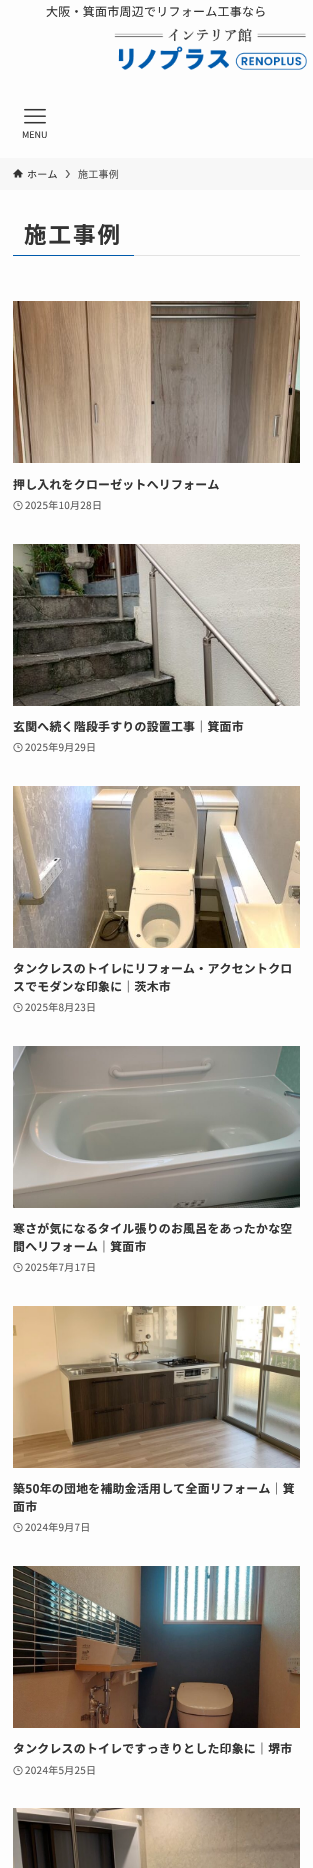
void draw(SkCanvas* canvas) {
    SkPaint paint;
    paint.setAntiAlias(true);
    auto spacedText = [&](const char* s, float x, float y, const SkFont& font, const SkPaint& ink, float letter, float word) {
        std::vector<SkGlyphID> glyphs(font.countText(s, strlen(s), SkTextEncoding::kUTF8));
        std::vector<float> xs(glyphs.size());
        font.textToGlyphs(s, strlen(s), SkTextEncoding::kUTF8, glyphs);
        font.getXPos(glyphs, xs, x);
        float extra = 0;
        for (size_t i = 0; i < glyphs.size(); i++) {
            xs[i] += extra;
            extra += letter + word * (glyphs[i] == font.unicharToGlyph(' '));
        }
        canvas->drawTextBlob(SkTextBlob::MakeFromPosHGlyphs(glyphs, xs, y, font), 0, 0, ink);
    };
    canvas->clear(0xFFFDFDFD);
    SkFont font1(fontMgr->matchFamilyStyle("Noto Sans JP", SkFontStyle::Normal()), 12);
    font1.setSubpixel(true);
    paint.setColor(0xFF333333);
    spacedText("大阪・箕面市周辺でリフォーム工事なら", 46, 16, font1, paint, 0.25f, 0);
    canvas->drawImageRect(SkImages::DeferredFromEncodedData(SkData::MakeFromFileName("img1.png")), SkRect::MakeXYWH(114, 28, 193, 42), SkSamplingOptions());
    canvas->drawImageRect(SkImages::DeferredFromEncodedData(SkData::MakeFromFileName("img2.png")), SkRect::MakeXYWH(24, 108, 22, 16), SkSamplingOptions());
    SkFont font2(fontMgr->matchFamilyStyle("Noto Sans JP", SkFontStyle::Normal()), 9);
    font2.setSubpixel(true);
    canvas->drawString("MENU", 22, 138, font2, paint);
    paint.setColor(0xFFF7F7F7);
    canvas->drawRect(SkRect::MakeXYWH(0, 158, 313, 32), paint);
    canvas->drawImageRect(SkImages::DeferredFromEncodedData(SkData::MakeFromFileName("img3.png")), SkRect::MakeXYWH(13, 169, 10, 9), SkSamplingOptions());
    SkFont font3(fontMgr->matchFamilyStyle("Noto Sans JP", SkFontStyle::Normal()), 10);
    font3.setSubpixel(true);
    paint.setColor(0xFF333333);
    spacedText("ホーム", 27, 178, font3, paint, 0.25f, 0);
    paint.setColor(0xFF5A5A5A);
    canvas->drawPath(SkPathBuilder().moveTo(67, 170).lineTo(65.5f, 170).lineTo(68.5f, 174).lineTo(65.5f, 178).lineTo(67, 178).lineTo(70, 174).close().detach(), paint);
    spacedText("施工事例", 78, 178, font3, paint, 0.25f, 0);
    paint.setColor(0xFFE2E2E2);
    canvas->drawRect(SkRect::MakeXYWH(134, 255, 166, 1), paint);
    paint.setColor(0xFF005BAC);
    canvas->drawRect(SkRect::MakeXYWH(13, 255, 121, 1), paint);
    SkFont font4(fontMgr->matchFamilyStyle("Noto Sans JP", SkFontStyle::Bold()), 22.5f);
    font4.setSubpixel(true);
    paint.setColor(0xFF333333);
    spacedText("施工事例", 24, 243, font4, paint, 2, 0);
    canvas->drawImageRect(SkImages::DeferredFromEncodedData(SkData::MakeFromFileName("img4.png")), SkRect::MakeXYWH(13, 301, 287, 162), SkSamplingOptions());
    SkFont font5(fontMgr->matchFamilyStyle("Noto Sans JP", SkFontStyle::Bold()), 11.9f);
    font5.setSubpixel(true);
    spacedText("押し入れをクローゼットへリフォーム", 13, 489, font5, paint, 0.25f, 0);
    canvas->drawImageRect(SkImages::DeferredFromEncodedData(SkData::MakeFromFileName("img5.png")), SkRect::MakeXYWH(13, 500, 10, 11), SkSamplingOptions());
    paint.setColor(0xFF5A5A5A);
    spacedText("2025年10月28日", 25, 509, font3, paint, 0.25f, 0);
    canvas->drawImageRect(SkImages::DeferredFromEncodedData(SkData::MakeFromFileName("img6.png")), SkRect::MakeXYWH(13, 544, 287, 162), SkSamplingOptions());
    paint.setColor(0xFF333333);
    spacedText("玄関へ続く階段手すりの設置工事｜箕面市", 13, 731, font5, paint, 0.25f, 0);
    canvas->drawImageRect(SkImages::DeferredFromEncodedData(SkData::MakeFromFileName("img5.png")), SkRect::MakeXYWH(13, 742, 10, 11), SkSamplingOptions());
    paint.setColor(0xFF5A5A5A);
    spacedText("2025年9月29日", 25, 751, font3, paint, 0.25f, 0);
    canvas->drawImageRect(SkImages::DeferredFromEncodedData(SkData::MakeFromFileName("img7.png")), SkRect::MakeXYWH(13, 786, 287, 162), SkSamplingOptions());
    paint.setColor(0xFF333333);
    spacedText("タンクレスのトイレにリフォーム・アクセントクロ", 13, 973, font5, paint, 0.25f, 0);
    spacedText("スでモダンな印象に｜茨木市", 13, 991, font5, paint, 0.25f, 0);
    canvas->drawImageRect(SkImages::DeferredFromEncodedData(SkData::MakeFromFileName("img5.png")), SkRect::MakeXYWH(13, 1002, 10, 11), SkSamplingOptions());
    paint.setColor(0xFF5A5A5A);
    spacedText("2025年8月23日", 25, 1011, font3, paint, 0.25f, 0);
    canvas->drawImageRect(SkImages::DeferredFromEncodedData(SkData::MakeFromFileName("img8.png")), SkRect::MakeXYWH(13, 1046, 287, 162), SkSamplingOptions());
    paint.setColor(0xFF333333);
    spacedText("寒さが気になるタイル張りのお風呂をあったかな空", 13, 1233, font5, paint, 0.25f, 0);
    spacedText("間へリフォーム｜箕面市", 13, 1251, font5, paint, 0.25f, 0);
    canvas->drawImageRect(SkImages::DeferredFromEncodedData(SkData::MakeFromFileName("img5.png")), SkRect::MakeXYWH(13, 1262, 10, 11), SkSamplingOptions());
    paint.setColor(0xFF5A5A5A);
    spacedText("2025年7月17日", 25, 1271, font3, paint, 0.25f, 0);
    canvas->drawImageRect(SkImages::DeferredFromEncodedData(SkData::MakeFromFileName("img9.png")), SkRect::MakeXYWH(13, 1306, 287, 162), SkSamplingOptions());
    paint.setColor(0xFF333333);
    spacedText("築50年の団地を補助金活用して全面リフォーム｜箕", 13, 1493, font5, paint, 0.25f, 0);
    spacedText("面市", 13, 1511, font5, paint, 0.25f, 0);
    canvas->drawImageRect(SkImages::DeferredFromEncodedData(SkData::MakeFromFileName("img5.png")), SkRect::MakeXYWH(13, 1522, 10, 11), SkSamplingOptions());
    paint.setColor(0xFF5A5A5A);
    spacedText("2024年9月7日", 25, 1531, font3, paint, 0.25f, 0);
    canvas->drawImageRect(SkImages::DeferredFromEncodedData(SkData::MakeFromFileName("img10.png")), SkRect::MakeXYWH(13, 1566, 287, 162), SkSamplingOptions());
    paint.setColor(0xFF333333);
    spacedText("タンクレスのトイレですっきりとした印象に｜堺市", 13, 1753, font5, paint, 0.25f, 0);
    canvas->drawImageRect(SkImages::DeferredFromEncodedData(SkData::MakeFromFileName("img5.png")), SkRect::MakeXYWH(13, 1765, 10, 11), SkSamplingOptions());
    paint.setColor(0xFF5A5A5A);
    spacedText("2024年5月25日", 25, 1774, font3, paint, 0.25f, 0);
    canvas->drawImageRect(SkImages::DeferredFromEncodedData(SkData::MakeFromFileName("img11.png")), SkRect::MakeXYWH(13, 1808, 287, 60), SkSamplingOptions());
}
